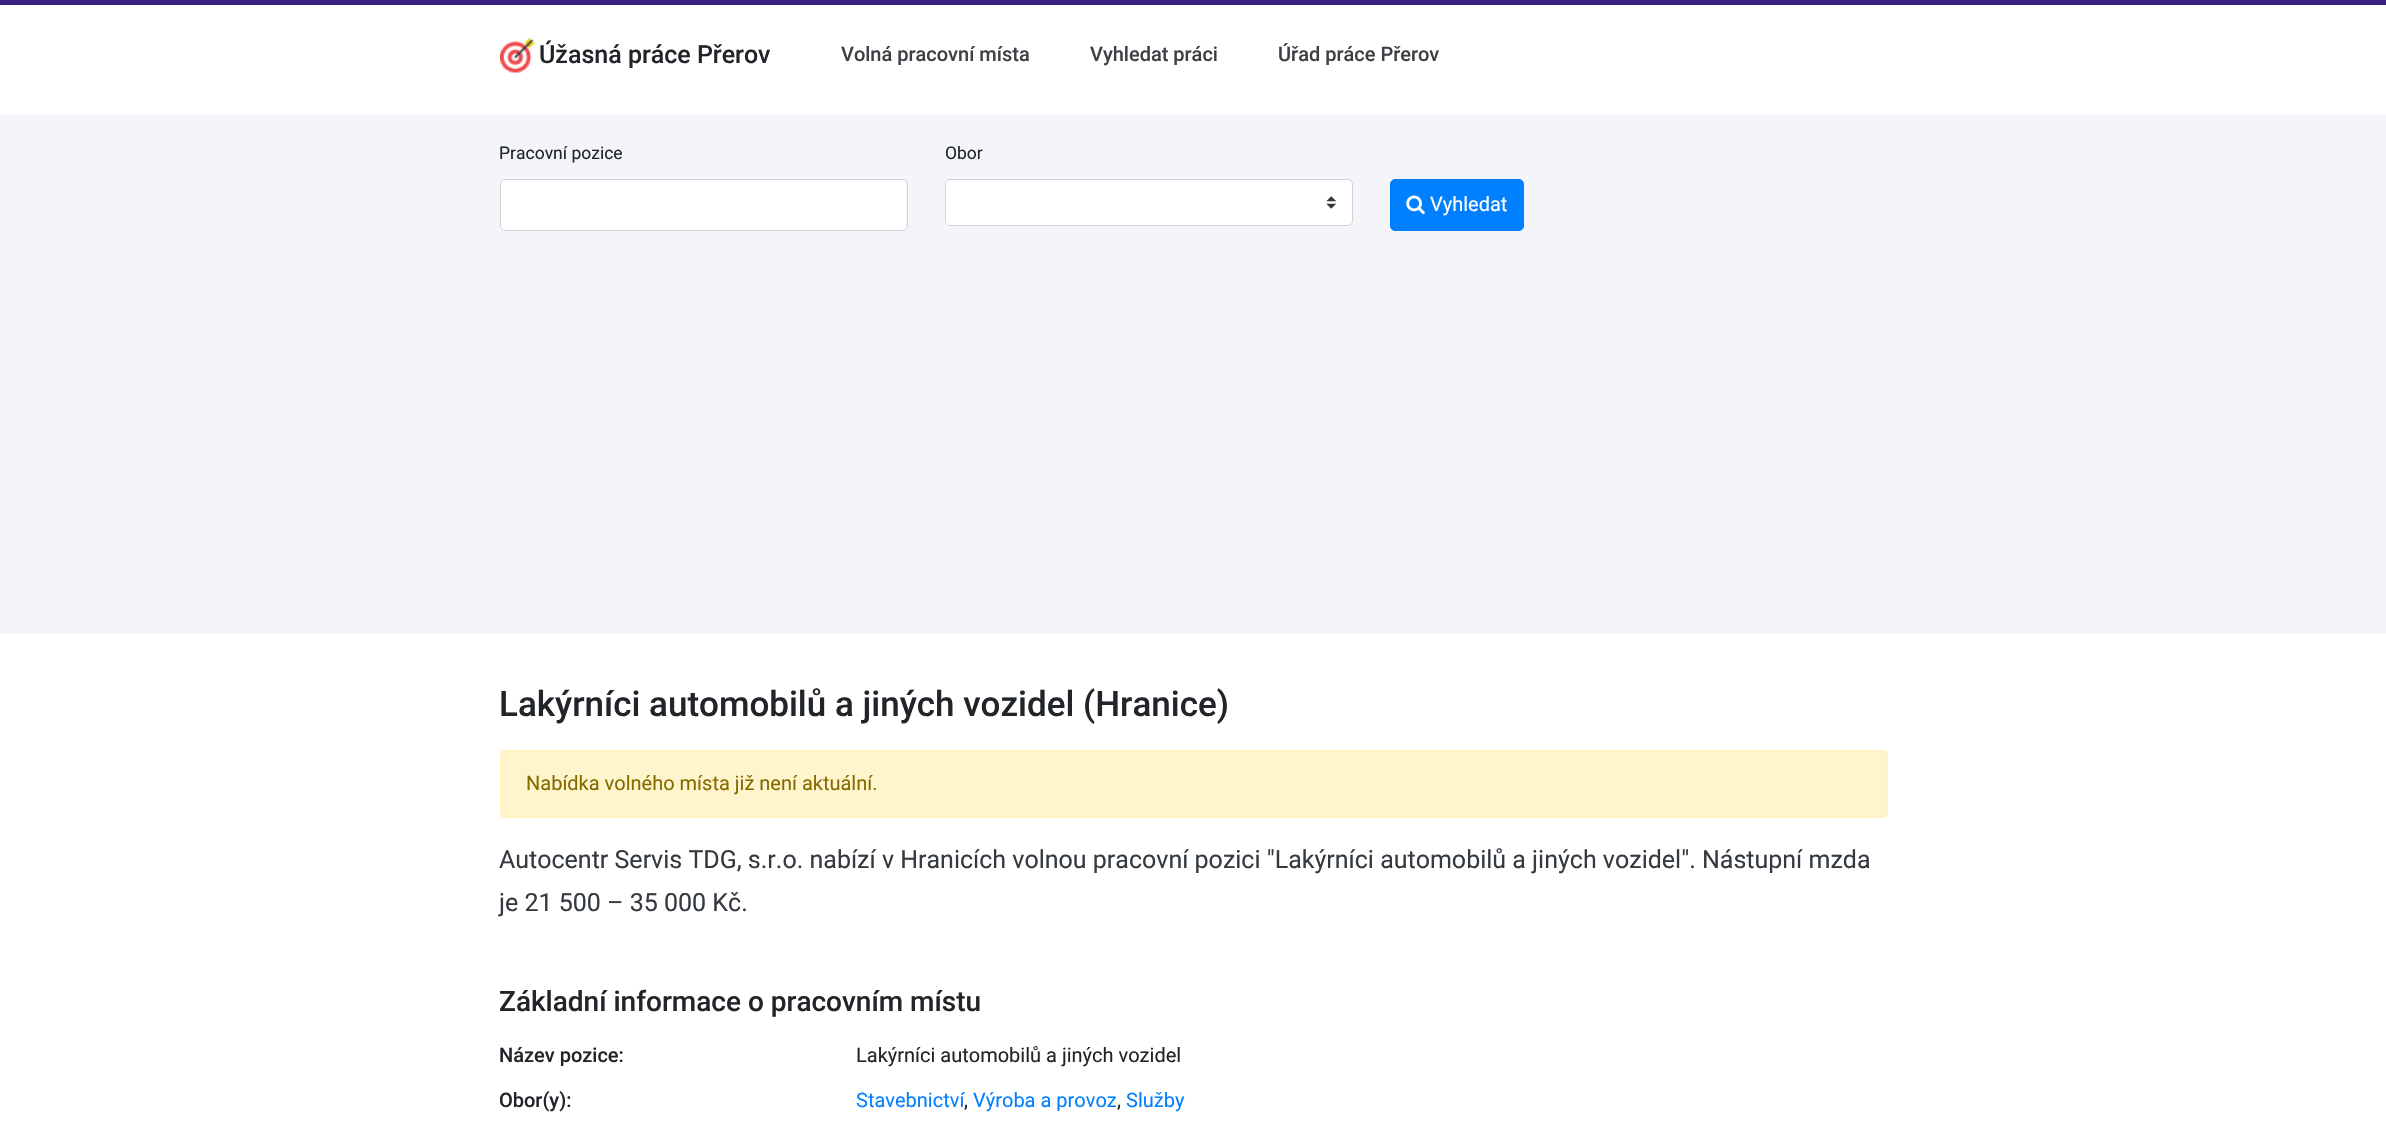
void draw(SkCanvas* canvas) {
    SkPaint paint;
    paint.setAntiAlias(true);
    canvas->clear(0xFFFFFFFF);
    paint.setColor(0xFF382183);
    canvas->drawRect(SkRect::MakeXYWH(0, 0, 2386, 5), paint);
    canvas->drawImageRect(SkImages::DeferredFromEncodedData(SkData::MakeFromFileName("img1.png")), SkRect::MakeXYWH(500, 37, 35, 36), SkSamplingOptions());
    SkFont font1(fontMgr->matchFamilyStyle("Roboto", SkFontStyle(500, SkFontStyle::kNormal_Width, SkFontStyle::kUpright_Slant)), 25);
    font1.setSubpixel(true);
    paint.setColor(0xFF212529);
    canvas->drawString("Úžasná práce Přerov", 539, 63, font1, paint);
    SkFont font2(fontMgr->matchFamilyStyle("Roboto", SkFontStyle(500, SkFontStyle::kNormal_Width, SkFontStyle::kUpright_Slant)), 20);
    font2.setSubpixel(true);
    paint.setColor(0xFF3F3F46);
    canvas->drawString("Volná pracovní místa", 841, 61, font2, paint);
    canvas->drawString("Vyhledat práci", 1090, 61, font2, paint);
    canvas->drawString("Úřad práce Přerov", 1278, 61, font2, paint);
    paint.setColor(0xFFF3F5F9);
    canvas->drawRect(SkRect::MakeXYWH(0, 115, 2386, 519), paint);
    SkFont font3(fontMgr->matchFamilyStyle("Roboto", SkFontStyle::Normal()), 17.5f);
    font3.setSubpixel(true);
    paint.setColor(0xFF212529);
    canvas->drawString("Pracovní pozice", 499, 159, font3, paint);
    paint.setColor(0xFFFFFFFF);
    canvas->drawRoundRect(SkRect::MakeXYWH(501, 180, 405, 50), 4, 4, paint);
    paint.setStyle(SkPaint::kStroke_Style);
    paint.setStrokeWidth(1);
    paint.setColor(0xFFCED4DA);
    canvas->drawRoundRect(SkRect::MakeXYWH(500.5f, 179.5f, 407, 51), 4.5f, 4.5f, paint);
    paint.setStyle(SkPaint::kFill_Style);
    paint.setColor(0xFF212529);
    canvas->drawString("Obor", 945, 159, font3, paint);
    paint.setColor(0xFFFFFFFF);
    canvas->drawRoundRect(SkRect::MakeXYWH(945, 179, 408, 47), 5, 5, paint);
    canvas->drawImageRect(SkImages::DeferredFromEncodedData(SkData::MakeFromFileName("img2.png")), SkRect::MakeXYWH(1326, 196, 10, 13), SkSamplingOptions());
    paint.setStyle(SkPaint::kStroke_Style);
    paint.setColor(0xFFCED4DA);
    canvas->drawRoundRect(SkRect::MakeXYWH(945.5f, 179.5f, 407, 46), 4.5f, 4.5f, paint);
    paint.setStyle(SkPaint::kFill_Style);
    paint.setColor(0xFF0080FF);
    canvas->drawRoundRect(SkRect::MakeXYWH(1390.5f, 179.5f, 133, 51), 4.5f, 4.5f, paint);
    paint.setStyle(SkPaint::kStroke_Style);
    canvas->drawRoundRect(SkRect::MakeXYWH(1390.5f, 179.5f, 133, 51), 4.5f, 4.5f, paint);
    canvas->drawImageRect(SkImages::DeferredFromEncodedData(SkData::MakeFromFileName("img3.png")), SkRect::MakeXYWH(1406, 195, 19, 20), SkSamplingOptions());
    SkFont font4(fontMgr->matchFamilyStyle("Roboto", SkFontStyle::Normal()), 20);
    font4.setSubpixel(true);
    paint.setStyle(SkPaint::kFill_Style);
    paint.setColor(0xFFFFFFFF);
    canvas->drawString("Vyhledat", 1430, 211, font4, paint);
    SkFont font5(fontMgr->matchFamilyStyle("Roboto", SkFontStyle(500, SkFontStyle::kNormal_Width, SkFontStyle::kUpright_Slant)), 35);
    font5.setSubpixel(true);
    paint.setColor(0xFF212529);
    canvas->drawString("Lakýrníci automobilů a jiných vozidel (Hranice)", 499, 716, font5, paint);
    paint.setColor(0xFFFFF5CC);
    canvas->drawRoundRect(SkRect::MakeXYWH(500.5f, 750.5f, 1387, 67), 4.5f, 4.5f, paint);
    paint.setStyle(SkPaint::kStroke_Style);
    paint.setColor(0xFFFFF1B8);
    canvas->drawRoundRect(SkRect::MakeXYWH(500.5f, 750.5f, 1387, 67), 4.5f, 4.5f, paint);
    paint.setStyle(SkPaint::kFill_Style);
    paint.setColor(0xFF856A00);
    canvas->drawString("Nabídka volného místa již není aktuální.", 526, 790, font4, paint);
    SkFont font6(fontMgr->matchFamilyStyle("Roboto", SkFontStyle::Normal()), 25);
    font6.setSubpixel(true);
    paint.setColor(0xFF343A40);
    canvas->drawString("Autocentr Servis TDG, s.r.o. nabízí v Hranicích volnou pracovní pozici \"Lakýrníci automobilů a jiných vozidel\". Nástupní mzda", 499, 868, font6, paint);
    canvas->drawString("je 21 500 – 35 000 Kč.", 499, 911, font6, paint);
    SkFont font7(fontMgr->matchFamilyStyle("Roboto", SkFontStyle(500, SkFontStyle::kNormal_Width, SkFontStyle::kUpright_Slant)), 28);
    font7.setSubpixel(true);
    paint.setColor(0xFF212529);
    canvas->drawString("Základní informace o pracovním místu", 499, 1011, font7, paint);
    canvas->drawString("Název pozice:", 499, 1062, font2, paint);
    canvas->drawString("Lakýrníci automobilů a jiných vozidel", 856, 1062, font4, paint);
    canvas->drawString("Obor(y):", 499, 1107, font2, paint);
    paint.setColor(0xFF0080FF);
    canvas->drawString("Stavebnictví", 856, 1107, font4, paint);
    paint.setColor(0xFF212529);
    canvas->drawString(",", 964, 1107, font4, paint);
    paint.setColor(0xFF0080FF);
    canvas->drawString("Výroba a provoz", 973, 1107, font4, paint);
    paint.setColor(0xFF212529);
    canvas->drawString(",", 1117, 1107, font4, paint);
    paint.setColor(0xFF0080FF);
    canvas->drawString("Služby", 1126, 1107, font4, paint);
}
